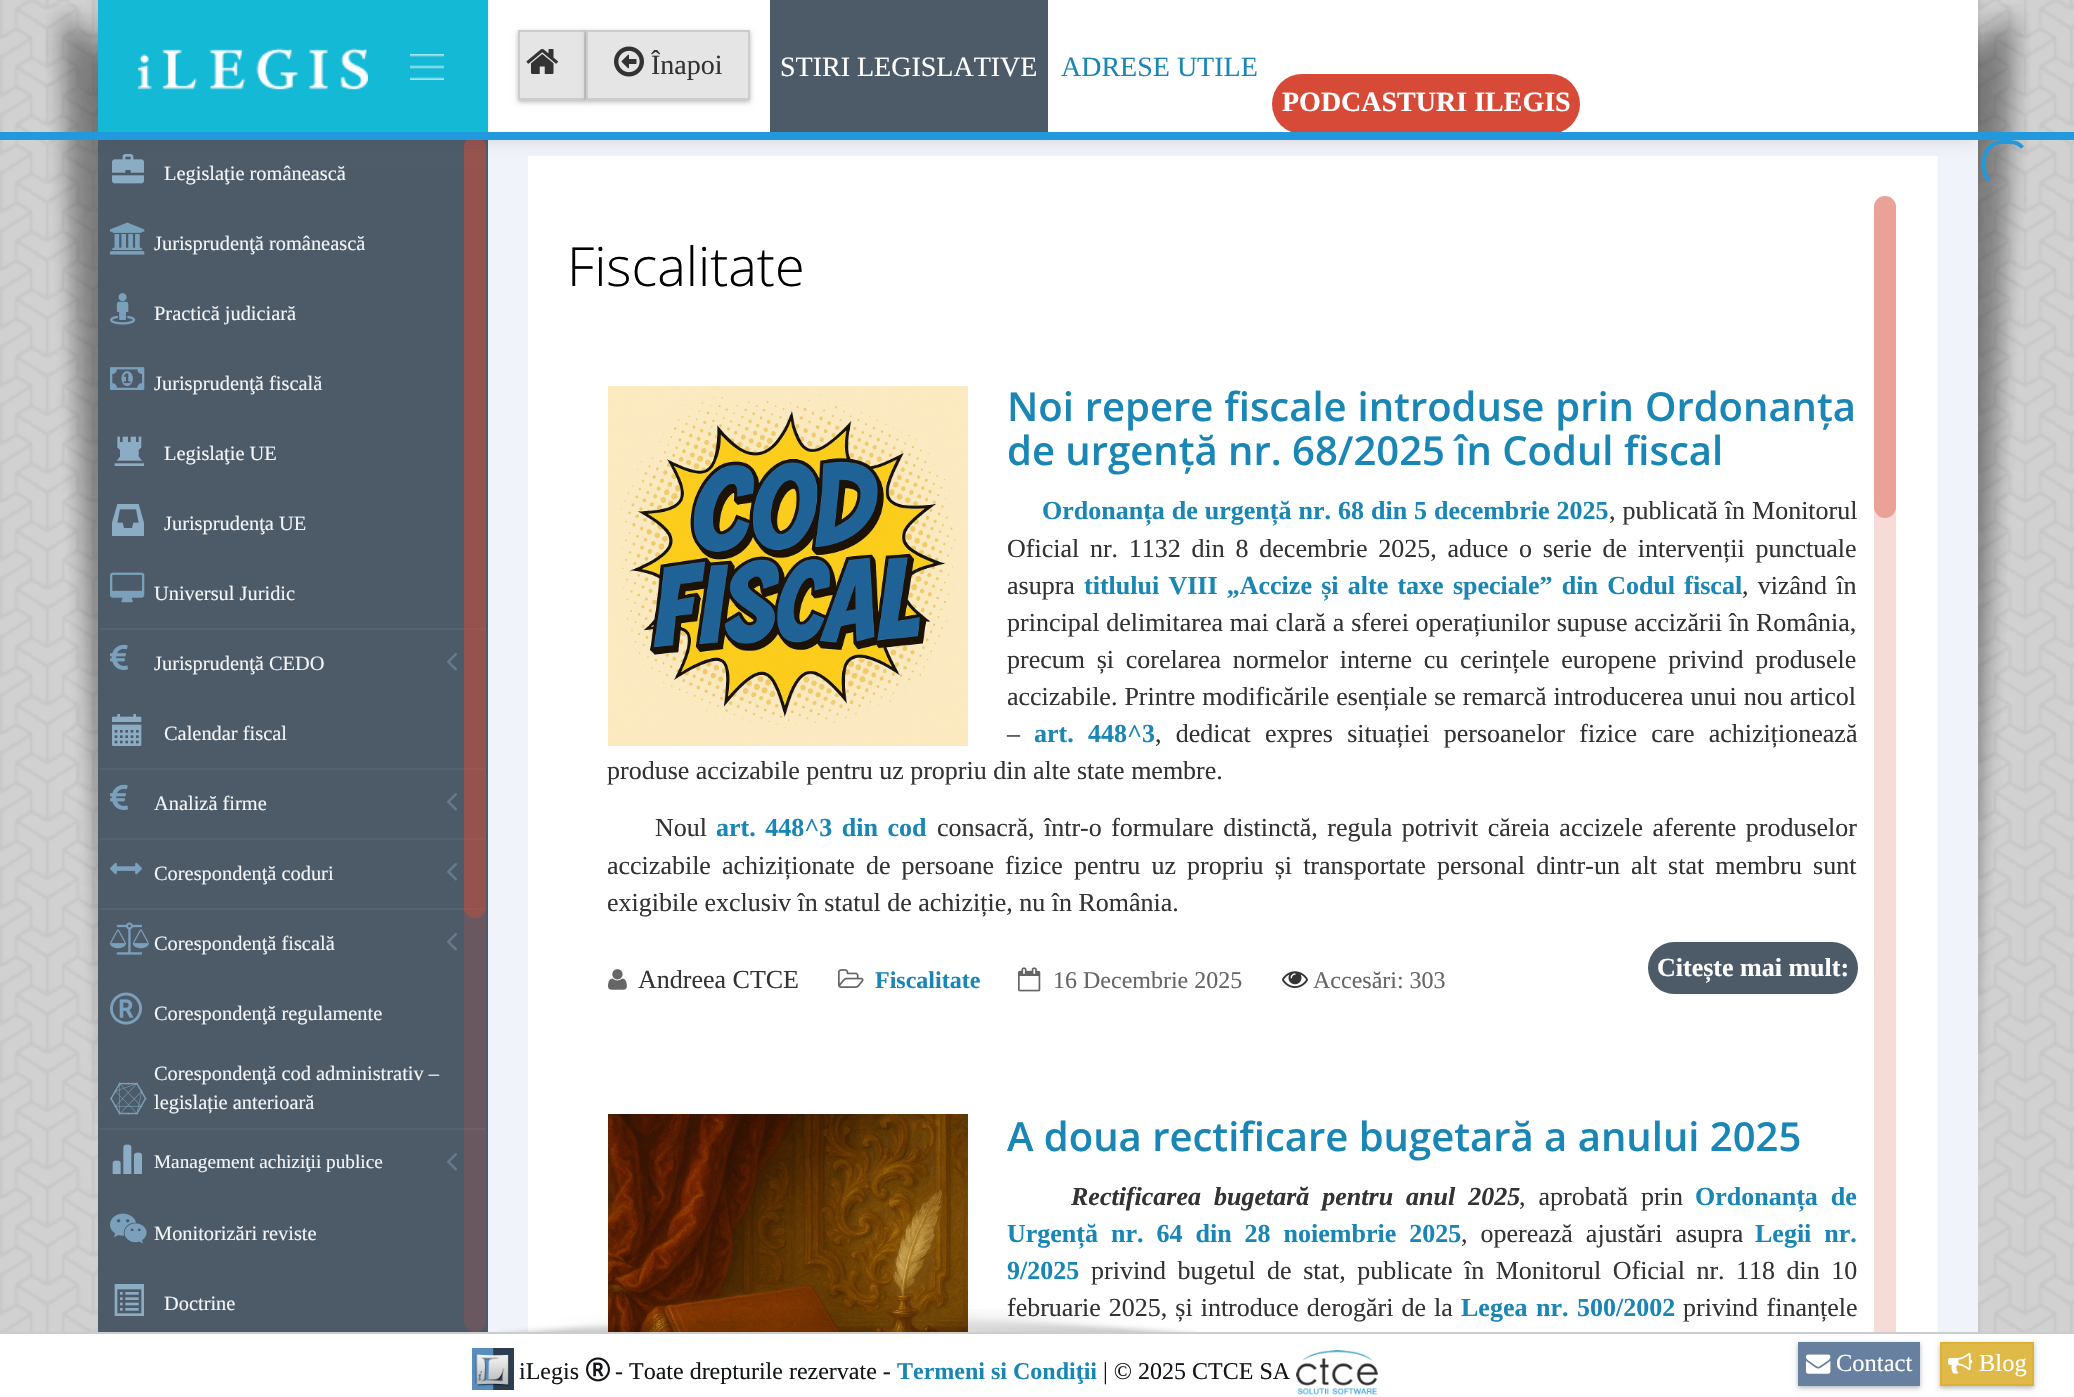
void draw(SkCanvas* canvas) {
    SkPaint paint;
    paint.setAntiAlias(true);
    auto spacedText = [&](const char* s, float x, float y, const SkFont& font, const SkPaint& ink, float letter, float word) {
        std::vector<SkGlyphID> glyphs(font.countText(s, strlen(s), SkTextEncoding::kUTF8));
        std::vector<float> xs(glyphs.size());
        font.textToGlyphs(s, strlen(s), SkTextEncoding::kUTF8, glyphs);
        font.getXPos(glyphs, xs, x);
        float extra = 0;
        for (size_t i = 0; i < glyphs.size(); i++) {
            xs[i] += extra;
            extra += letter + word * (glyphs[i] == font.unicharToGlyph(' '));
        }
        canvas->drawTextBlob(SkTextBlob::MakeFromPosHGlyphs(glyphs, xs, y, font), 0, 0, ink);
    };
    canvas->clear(0xFFFFFFFF);
    canvas->drawImageRect(SkImages::DeferredFromEncodedData(SkData::MakeFromFileName("img1.png")), SkRect::MakeXYWH(0, 0, 2074, 1332), SkSamplingOptions());
    canvas->drawImageRect(SkImages::DeferredFromEncodedData(SkData::MakeFromFileName("img6.png")), SkRect::MakeXYWH(45, 4, 53, 1119), SkSamplingOptions());
    paint.setColor(0xFF4D5B69);
    canvas->drawRect(SkRect::MakeXYWH(98, 140, 390, 1192), paint);
    paint.setColor(0xFF536372);
    canvas->drawRect(SkRect::MakeXYWH(100, 628, 386, 2), paint);
    canvas->drawRect(SkRect::MakeXYWH(100, 768, 386, 2), paint);
    canvas->drawRect(SkRect::MakeXYWH(100, 838, 386, 2), paint);
    canvas->drawRect(SkRect::MakeXYWH(100, 908, 386, 2), paint);
    canvas->drawRect(SkRect::MakeXYWH(100, 1128, 386, 2), paint);
    paint.setColor(0x33D84A38);
    canvas->drawRoundRect(SkRect::MakeXYWH(464, 136, 22, 1196), 11, 11, paint);
    canvas->drawImageRect(SkImages::DeferredFromEncodedData(SkData::MakeFromFileName("img7.png")), SkRect::MakeXYWH(112, 154, 32, 30), SkSamplingOptions());
    paint.setColor(0x66D84A38);
    canvas->drawRoundRect(SkRect::MakeXYWH(464, 136, 22, 782), 11, 11, paint);
    paint.setColor(0xFFF1F3FA);
    canvas->drawRect(SkRect::MakeXYWH(488, 140, 1490, 1192), paint);
    paint.setColor(0xFFFFFFFF);
    canvas->drawRect(SkRect::MakeXYWH(528, 156, 1410, 1176), paint);
    canvas->drawImageRect(SkImages::DeferredFromEncodedData(SkData::MakeFromFileName("img30.png")), SkRect::MakeXYWH(1978, 4, 53, 1119), SkSamplingOptions());
    paint.setColor(0x33323232);
    paint.setMaskFilter(SkMaskFilter::MakeBlur(kNormal_SkBlurStyle, 10));
    canvas->drawRect(SkRect::MakeXYWH(98, 2, 1880, 136), paint);
    paint.setMaskFilter(nullptr);
    paint.setColor(0xFF14B9D6);
    canvas->drawRect(SkRect::MakeXYWH(98, 0, 390, 132), paint);
    canvas->drawImageRect(SkImages::DeferredFromEncodedData(SkData::MakeFromFileName("img2.png")), SkRect::MakeXYWH(138, 48, 230, 42), SkSamplingOptions());
    canvas->drawImageRect(SkImages::DeferredFromEncodedData(SkData::MakeFromFileName("img3.png")), SkRect::MakeXYWH(410, 54, 34, 26), SkSamplingOptions());
    paint.setColor(0xFFFFFFFF);
    canvas->drawRect(SkRect::MakeXYWH(488, 0, 1490, 132), paint);
    paint.setColor(0x2E000000);
    paint.setMaskFilter(SkMaskFilter::MakeBlur(kNormal_SkBlurStyle, 2));
    canvas->drawRect(SkRect::MakeXYWH(518, 32, 68, 70), paint);
    paint.setMaskFilter(nullptr);
    paint.setColor(0x1A000000);
    paint.setMaskFilter(SkMaskFilter::MakeBlur(kNormal_SkBlurStyle, 3));
    canvas->drawRect(SkRect::MakeXYWH(518, 32, 68, 70), paint);
    paint.setMaskFilter(nullptr);
    paint.setColor(0xFFE5E5E5);
    canvas->drawRect(SkRect::MakeXYWH(519, 31, 66, 68), paint);
    paint.setStyle(SkPaint::kStroke_Style);
    paint.setStrokeWidth(2);
    paint.setColor(0xFFCCCCCC);
    canvas->drawRect(SkRect::MakeXYWH(519, 31, 66, 68), paint);
    canvas->drawImageRect(SkImages::DeferredFromEncodedData(SkData::MakeFromFileName("img4.png")), SkRect::MakeXYWH(526, 48, 32, 26), SkSamplingOptions());
    paint.setStyle(SkPaint::kFill_Style);
    paint.setColor(0x2E000000);
    paint.setMaskFilter(SkMaskFilter::MakeBlur(kNormal_SkBlurStyle, 2));
    canvas->drawRect(SkRect::MakeXYWH(586, 32, 164, 70), paint);
    paint.setMaskFilter(nullptr);
    paint.setColor(0x1A000000);
    paint.setMaskFilter(SkMaskFilter::MakeBlur(kNormal_SkBlurStyle, 3));
    canvas->drawRect(SkRect::MakeXYWH(586, 32, 164, 70), paint);
    paint.setMaskFilter(nullptr);
    paint.setColor(0xFFE5E5E5);
    canvas->drawRect(SkRect::MakeXYWH(587, 31, 162, 68), paint);
    paint.setStyle(SkPaint::kStroke_Style);
    paint.setColor(0xFFCCCCCC);
    canvas->drawRect(SkRect::MakeXYWH(587, 31, 162, 68), paint);
    canvas->drawImageRect(SkImages::DeferredFromEncodedData(SkData::MakeFromFileName("img5.png")), SkRect::MakeXYWH(614, 46, 30, 31), SkSamplingOptions());
    SkFont font1(fontMgr->matchFamilyStyle("Liberation Serif", SkFontStyle::Normal()), 28);
    font1.setSubpixel(true);
    paint.setStyle(SkPaint::kFill_Style);
    paint.setColor(0xFF333333);
    canvas->drawString("Înapoi", 651, 74, font1, paint);
    paint.setColor(0xFF4D5B69);
    canvas->drawRect(SkRect::MakeXYWH(770, 0, 278, 132), paint);
    paint.setColor(0xFFFFFFFF);
    canvas->drawString("STIRI LEGISLATIVE", 780, 76, font1, paint);
    paint.setColor(0xFF1A86B6);
    canvas->drawString("ADRESE UTILE", 1061, 76, font1, paint);
    paint.setColor(0xFFD84A38);
    canvas->drawRoundRect(SkRect::MakeXYWH(1272, 74, 308, 60), 30, 30, paint);
    SkFont font2(fontMgr->matchFamilyStyle("Liberation Serif", SkFontStyle::Bold()), 28);
    font2.setSubpixel(true);
    paint.setColor(0xFFFFFFFF);
    canvas->drawString("PODCASTURI ILEGIS", 1282, 111, font2, paint);
    paint.setColor(0xFF2299DD);
    canvas->drawRect(SkRect::MakeXYWH(0, 132, 2074, 8), paint);
    paint.setStyle(SkPaint::kStroke_Style);
    paint.setStrokeWidth(4);
    canvas->drawPath(SkPathBuilder().moveTo(1989.5f, 180.5f).cubicTo(1986, 177.5f, 1984, 173, 1984, 168).lineTo(1984, 160).cubicTo(1984, 155, 1986, 150.5f, 1989.5f, 147.5f).cubicTo(1992.5f, 144, 1997, 142, 2002, 142).lineTo(2010, 142).cubicTo(2015, 142, 2019.5f, 144, 2022.5f, 147.5f).detach(), paint);
    SkFont font3(fontMgr->matchFamilyStyle("Liberation Serif", SkFontStyle::Normal()), 20.4f);
    font3.setSubpixel(true);
    paint.setStyle(SkPaint::kFill_Style);
    paint.setColor(0xFFF2F4F6);
    canvas->drawString("Legislaţie românească", 164, 180, font3, paint);
    canvas->drawImageRect(SkImages::DeferredFromEncodedData(SkData::MakeFromFileName("img8.png")), SkRect::MakeXYWH(110, 222, 35, 33), SkSamplingOptions());
    canvas->drawString("Jurisprudenţă românească", 154, 250, font3, paint);
    canvas->drawImageRect(SkImages::DeferredFromEncodedData(SkData::MakeFromFileName("img9.png")), SkRect::MakeXYWH(110, 293, 26, 32), SkSamplingOptions());
    canvas->drawString("Practică judiciară", 154, 320, font3, paint);
    canvas->drawImageRect(SkImages::DeferredFromEncodedData(SkData::MakeFromFileName("img10.png")), SkRect::MakeXYWH(110, 367, 35, 23), SkSamplingOptions());
    canvas->drawString("Jurisprudenţă fiscală", 154, 390, font3, paint);
    canvas->drawImageRect(SkImages::DeferredFromEncodedData(SkData::MakeFromFileName("img11.png")), SkRect::MakeXYWH(114, 436, 30, 30), SkSamplingOptions());
    canvas->drawString("Legislaţie UE", 164, 460, font3, paint);
    canvas->drawImageRect(SkImages::DeferredFromEncodedData(SkData::MakeFromFileName("img12.png")), SkRect::MakeXYWH(112, 504, 32, 32), SkSamplingOptions());
    canvas->drawString("Jurisprudenţa UE", 164, 530, font3, paint);
    canvas->drawImageRect(SkImages::DeferredFromEncodedData(SkData::MakeFromFileName("img13.png")), SkRect::MakeXYWH(110, 572, 35, 31), SkSamplingOptions());
    canvas->drawString("Universul Juridic", 154, 600, font3, paint);
    canvas->drawImageRect(SkImages::DeferredFromEncodedData(SkData::MakeFromFileName("img14.png")), SkRect::MakeXYWH(110, 644, 18, 26), SkSamplingOptions());
    canvas->drawString("Jurisprudenţă CEDO", 154, 670, font3, paint);
    canvas->drawImageRect(SkImages::DeferredFromEncodedData(SkData::MakeFromFileName("img15.png")), SkRect::MakeXYWH(447, 653, 10, 18), SkSamplingOptions());
    canvas->drawImageRect(SkImages::DeferredFromEncodedData(SkData::MakeFromFileName("img16.png")), SkRect::MakeXYWH(112, 714, 30, 32), SkSamplingOptions());
    canvas->drawString("Calendar fiscal", 164, 740, font3, paint);
    canvas->drawImageRect(SkImages::DeferredFromEncodedData(SkData::MakeFromFileName("img14.png")), SkRect::MakeXYWH(110, 784, 18, 26), SkSamplingOptions());
    canvas->drawString("Analiză firme", 154, 810, font3, paint);
    canvas->drawImageRect(SkImages::DeferredFromEncodedData(SkData::MakeFromFileName("img15.png")), SkRect::MakeXYWH(447, 793, 10, 18), SkSamplingOptions());
    canvas->drawImageRect(SkImages::DeferredFromEncodedData(SkData::MakeFromFileName("img17.png")), SkRect::MakeXYWH(110, 862, 32, 13), SkSamplingOptions());
    canvas->drawString("Corespondenţă coduri", 154, 880, font3, paint);
    canvas->drawImageRect(SkImages::DeferredFromEncodedData(SkData::MakeFromFileName("img15.png")), SkRect::MakeXYWH(447, 863, 10, 18), SkSamplingOptions());
    canvas->drawImageRect(SkImages::DeferredFromEncodedData(SkData::MakeFromFileName("img18.png")), SkRect::MakeXYWH(110, 922, 39, 33), SkSamplingOptions());
    canvas->drawString("Corespondenţă fiscală", 154, 950, font3, paint);
    canvas->drawImageRect(SkImages::DeferredFromEncodedData(SkData::MakeFromFileName("img15.png")), SkRect::MakeXYWH(447, 933, 10, 18), SkSamplingOptions());
    canvas->drawImageRect(SkImages::DeferredFromEncodedData(SkData::MakeFromFileName("img19.png")), SkRect::MakeXYWH(110, 992, 32, 33), SkSamplingOptions());
    canvas->drawString("Corespondenţă regulamente", 154, 1020, font3, paint);
    canvas->drawImageRect(SkImages::DeferredFromEncodedData(SkData::MakeFromFileName("img20.png")), SkRect::MakeXYWH(110, 1082, 37, 33), SkSamplingOptions());
    canvas->drawString("Corespondenţă cod administrativ –", 154, 1080, font3, paint);
    canvas->drawString("legislație anterioară", 154, 1109, font3, paint);
    canvas->drawImageRect(SkImages::DeferredFromEncodedData(SkData::MakeFromFileName("img21.png")), SkRect::MakeXYWH(112, 1144, 30, 30), SkSamplingOptions());
    SkFont font4(fontMgr->matchFamilyStyle("Liberation Serif", SkFontStyle::Normal()), 19.25f);
    font4.setSubpixel(true);
    canvas->drawString("Management achiziţii publice", 154, 1168, font4, paint);
    canvas->drawImageRect(SkImages::DeferredFromEncodedData(SkData::MakeFromFileName("img15.png")), SkRect::MakeXYWH(447, 1153, 10, 18), SkSamplingOptions());
    canvas->drawImageRect(SkImages::DeferredFromEncodedData(SkData::MakeFromFileName("img22.png")), SkRect::MakeXYWH(110, 1213, 37, 31), SkSamplingOptions());
    canvas->drawString("Monitorizări reviste", 154, 1240, font3, paint);
    canvas->drawImageRect(SkImages::DeferredFromEncodedData(SkData::MakeFromFileName("img23.png")), SkRect::MakeXYWH(114, 1284, 30, 32), SkSamplingOptions());
    canvas->drawString("Doctrine", 164, 1310, font3, paint);
    paint.setColor(0xFFF7DBD7);
    canvas->drawRoundRect(SkRect::MakeXYWH(1874, 196, 22, 1160), 11, 11, paint);
    SkFont font5(fontMgr->matchFamilyStyle("Open Sans", SkFontStyle(300, SkFontStyle::kNormal_Width, SkFontStyle::kUpright_Slant)), 54);
    font5.setSubpixel(true);
    paint.setColor(0xFF000000);
    canvas->drawString("Fiscalitate", 567, 286, font5, paint);
    canvas->drawImageRect(SkImages::DeferredFromEncodedData(SkData::MakeFromFileName("img24.png")), SkRect::MakeXYWH(608, 386, 360, 360), SkSamplingOptions());
    SkFont font6(fontMgr->matchFamilyStyle("Open Sans", SkFontStyle(600, SkFontStyle::kNormal_Width, SkFontStyle::kUpright_Slant)), 40);
    font6.setSubpixel(true);
    paint.setColor(0xFF1A86B6);
    spacedText("Noi repere fiscale introduse prin Ordonanța", 1007, 421, font6, paint, 0, 0.5f);
    canvas->drawString("de urgență nr. 68/2025 în Codul fiscal", 1007, 465, font6, paint);
    SkFont font7(fontMgr->matchFamilyStyle("Liberation Serif", SkFontStyle::Bold()), 26);
    font7.setSubpixel(true);
    spacedText("Ordonanța de urgență nr. 68 din 5 decembrie 2025", 1042, 519, font7, paint, 0, 0.5f);
    SkFont font8(fontMgr->matchFamilyStyle("Liberation Serif", SkFontStyle::Normal()), 26);
    font8.setSubpixel(true);
    paint.setColor(0xFF333333);
    spacedText(", publicată în Monitorul", 1609, 519, font8, paint, 0, 0.5f);
    spacedText("Oficial nr. 1132 din 8 decembrie 2025, aduce o serie de intervenții punctuale", 1007, 557, font8, paint, 0, 4.25f);
    canvas->drawString("asupra", 1007, 594, font8, paint);
    paint.setColor(0xFF1A86B6);
    spacedText("titlului VIII „Accize și alte taxe speciale” din Codul fiscal", 1084, 594, font7, paint, 0, 2.75f);
    paint.setColor(0xFF333333);
    spacedText(", vizând în", 1742, 594, font8, paint, 0, 2.75f);
    spacedText("principal delimitarea mai clară a sferei operațiunilor supuse accizării în România,", 1007, 631, font8, paint, 0, 0.25f);
    spacedText("precum și corelarea normelor interne cu cerințele europene privind produsele", 1007, 668, font8, paint, 0, 5.25f);
    spacedText("accizabile. Printre modificările esențiale se remarcă introducerea unui nou articol", 1007, 705, font8, paint, 0, 0.5f);
    canvas->drawString("–", 1007, 742, font8, paint);
    paint.setColor(0xFF1A86B6);
    spacedText("art. 448^3", 1034, 742, font7, paint, 0, 7.75f);
    paint.setColor(0xFF333333);
    spacedText(", dedicat expres situației persoanelor fizice care achiziționează", 1155, 742, font8, paint, 0, 7.75f);
    canvas->drawString("produse accizabile pentru uz propriu din alte state membre.", 607, 779, font8, paint);
    canvas->drawString("Noul", 655, 836, font8, paint);
    paint.setColor(0xFF1A86B6);
    spacedText("art. 448^3 din cod", 716, 836, font7, paint, 0, 3);
    paint.setColor(0xFF333333);
    spacedText("consacră, într-o formulare distinctă, regula potrivit căreia accizele aferente produselor", 937, 836, font8, paint, 0, 3);
    spacedText("accizabile achiziționate de persoane fizice pentru uz propriu și transportate personal dintr-un alt stat membru sunt", 607, 874, font8, paint, 0, 4.6f);
    canvas->drawString("exigibile exclusiv în statul de achiziție, nu în România.", 607, 911, font8, paint);
    canvas->drawImageRect(SkImages::DeferredFromEncodedData(SkData::MakeFromFileName("img25.png")), SkRect::MakeXYWH(608, 969, 19, 21), SkSamplingOptions());
    canvas->drawString("Andreea CTCE", 638, 988, font8, paint);
    canvas->drawImageRect(SkImages::DeferredFromEncodedData(SkData::MakeFromFileName("img26.png")), SkRect::MakeXYWH(838, 969, 26, 19), SkSamplingOptions());
    SkFont font9(fontMgr->matchFamilyStyle("Liberation Serif", SkFontStyle::Bold()), 24);
    font9.setSubpixel(true);
    paint.setColor(0xFF1A86B6);
    canvas->drawString("Fiscalitate", 875, 988, font9, paint);
    canvas->drawImageRect(SkImages::DeferredFromEncodedData(SkData::MakeFromFileName("img27.png")), SkRect::MakeXYWH(1018, 967, 23, 25), SkSamplingOptions());
    SkFont font10(fontMgr->matchFamilyStyle("Liberation Serif", SkFontStyle::Normal()), 24);
    font10.setSubpixel(true);
    paint.setColor(0xFF666666);
    canvas->drawString("16 Decembrie 2025", 1053, 988, font10, paint);
    canvas->drawImageRect(SkImages::DeferredFromEncodedData(SkData::MakeFromFileName("img28.png")), SkRect::MakeXYWH(1282, 971, 26, 17), SkSamplingOptions());
    canvas->drawString("Accesări: 303", 1313, 988, font10, paint);
    paint.setColor(0xFF4D5B69);
    canvas->drawRoundRect(SkRect::MakeXYWH(1648, 942, 210, 52), 26, 26, paint);
    paint.setColor(0xFFFFFFFF);
    canvas->drawString("Citește mai mult:", 1657, 976, font7, paint);
    canvas->drawImageRect(SkImages::DeferredFromEncodedData(SkData::MakeFromFileName("img29.png")), SkRect::MakeXYWH(608, 1114, 360, 218), SkSamplingOptions());
    paint.setColor(0xFF1A86B6);
    canvas->drawString("A doua rectificare bugetară a anului 2025", 1007, 1151, font6, paint);
    SkFont font11(fontMgr->matchFamilyStyle("Liberation Serif", SkFontStyle::BoldItalic()), 26);
    font11.setSubpixel(true);
    paint.setColor(0xFF333333);
    spacedText("Rectificarea bugetară pentru anul 2025", 1071, 1205, font11, paint, 0, 6.5f);
    spacedText(", aprobată prin", 1519, 1205, font8, paint, 0, 6.5f);
    paint.setColor(0xFF1A86B6);
    spacedText("Ordonanța de", 1695, 1205, font7, paint, 0, 6.5f);
    spacedText("Urgență nr. 64 din 28 noiembrie 2025", 1007, 1242, font7, paint, 0, 6.5f);
    paint.setColor(0xFF333333);
    spacedText(", operează ajustări asupra", 1461, 1242, font8, paint, 0, 6.5f);
    paint.setColor(0xFF1A86B6);
    spacedText("Legii nr.", 1755, 1242, font7, paint, 0, 6.5f);
    canvas->drawString("9/2025", 1007, 1279, font7, paint);
    paint.setColor(0xFF333333);
    spacedText("privind bugetul de stat, publicate în Monitorul Oficial nr. 118 din 10", 1091, 1279, font8, paint, 0, 5);
    spacedText("februarie 2025, și introduce derogări de la", 1007, 1316, font8, paint, 0, 1.5f);
    paint.setColor(0xFF1A86B6);
    spacedText("Legea nr. 500/2002", 1461, 1316, font7, paint, 0, 2);
    paint.setColor(0xFF333333);
    spacedText("privind finanțele", 1683, 1316, font8, paint, 0, 2);
    paint.setColor(0x66D84A38);
    canvas->drawRoundRect(SkRect::MakeXYWH(1874, 196, 22, 322), 11, 11, paint);
    paint.setColor(0xFFFFFFFF);
    canvas->drawRect(SkRect::MakeXYWH(1874, 1334, 22, 22), paint);
    paint.setColor(0xFFCCCCCC);
    canvas->drawRect(SkRect::MakeXYWH(0, 1332, 2074, 2), paint);
    canvas->drawImageRect(SkImages::DeferredFromEncodedData(SkData::MakeFromFileName("img31.png")), SkRect::MakeXYWH(497, 1309, 700, 23), SkSamplingOptions());
    canvas->drawImageRect(SkImages::DeferredFromEncodedData(SkData::MakeFromFileName("img32.png")), SkRect::MakeXYWH(472, 1348, 42, 42), SkSamplingOptions());
    paint.setColor(0xFF121618);
    canvas->drawString("iLegis", 519, 1379, font10, paint);
    canvas->drawImageRect(SkImages::DeferredFromEncodedData(SkData::MakeFromFileName("img33.png")), SkRect::MakeXYWH(586, 1357, 24, 25), SkSamplingOptions());
    canvas->drawString("- Toate drepturile rezervate -", 615, 1379, font10, paint);
    paint.setColor(0xFF1A86B6);
    canvas->drawString("Termeni si Condiţii", 897, 1379, font9, paint);
    paint.setColor(0xFF121618);
    canvas->drawString("| © 2025 CTCE SA", 1103, 1379, font10, paint);
    canvas->drawImageRect(SkImages::DeferredFromEncodedData(SkData::MakeFromFileName("img34.png")), SkRect::MakeXYWH(1296, 1350, 82, 45), SkSamplingOptions());
    paint.setColor(0x2E000000);
    paint.setMaskFilter(SkMaskFilter::MakeBlur(kNormal_SkBlurStyle, 2));
    canvas->drawRect(SkRect::MakeXYWH(1798, 1344, 122, 44), paint);
    paint.setMaskFilter(nullptr);
    paint.setColor(0x1A000000);
    paint.setMaskFilter(SkMaskFilter::MakeBlur(kNormal_SkBlurStyle, 3));
    canvas->drawRect(SkRect::MakeXYWH(1798, 1344, 122, 44), paint);
    paint.setMaskFilter(nullptr);
    paint.setColor(0xFF67809F);
    canvas->drawRect(SkRect::MakeXYWH(1798, 1342, 122, 44), paint);
    canvas->drawImageRect(SkImages::DeferredFromEncodedData(SkData::MakeFromFileName("img35.png")), SkRect::MakeXYWH(1806, 1354, 25, 20), SkSamplingOptions());
    SkFont font12(fontMgr->matchFamilyStyle("Liberation Serif", SkFontStyle::Normal()), 24.5f);
    font12.setSubpixel(true);
    paint.setColor(0xFFFFFFFF);
    canvas->drawString("Contact", 1836, 1371, font12, paint);
    paint.setColor(0x2E000000);
    paint.setMaskFilter(SkMaskFilter::MakeBlur(kNormal_SkBlurStyle, 2));
    canvas->drawRect(SkRect::MakeXYWH(1940, 1344, 94, 44), paint);
    paint.setMaskFilter(nullptr);
    paint.setColor(0x1A000000);
    paint.setMaskFilter(SkMaskFilter::MakeBlur(kNormal_SkBlurStyle, 3));
    canvas->drawRect(SkRect::MakeXYWH(1940, 1344, 94, 44), paint);
    paint.setMaskFilter(nullptr);
    paint.setColor(0xFFDFBA49);
    canvas->drawRect(SkRect::MakeXYWH(1941, 1343, 92, 42), paint);
    paint.setStyle(SkPaint::kStroke_Style);
    paint.setStrokeWidth(2);
    paint.setColor(0xFFDBB233);
    canvas->drawRect(SkRect::MakeXYWH(1941, 1343, 92, 42), paint);
    canvas->drawImageRect(SkImages::DeferredFromEncodedData(SkData::MakeFromFileName("img36.png")), SkRect::MakeXYWH(1948, 1352, 25, 22), SkSamplingOptions());
    paint.setStyle(SkPaint::kFill_Style);
    paint.setColor(0xFFFFFFFF);
    canvas->drawString("Blog", 1979, 1371, font12, paint);
}
